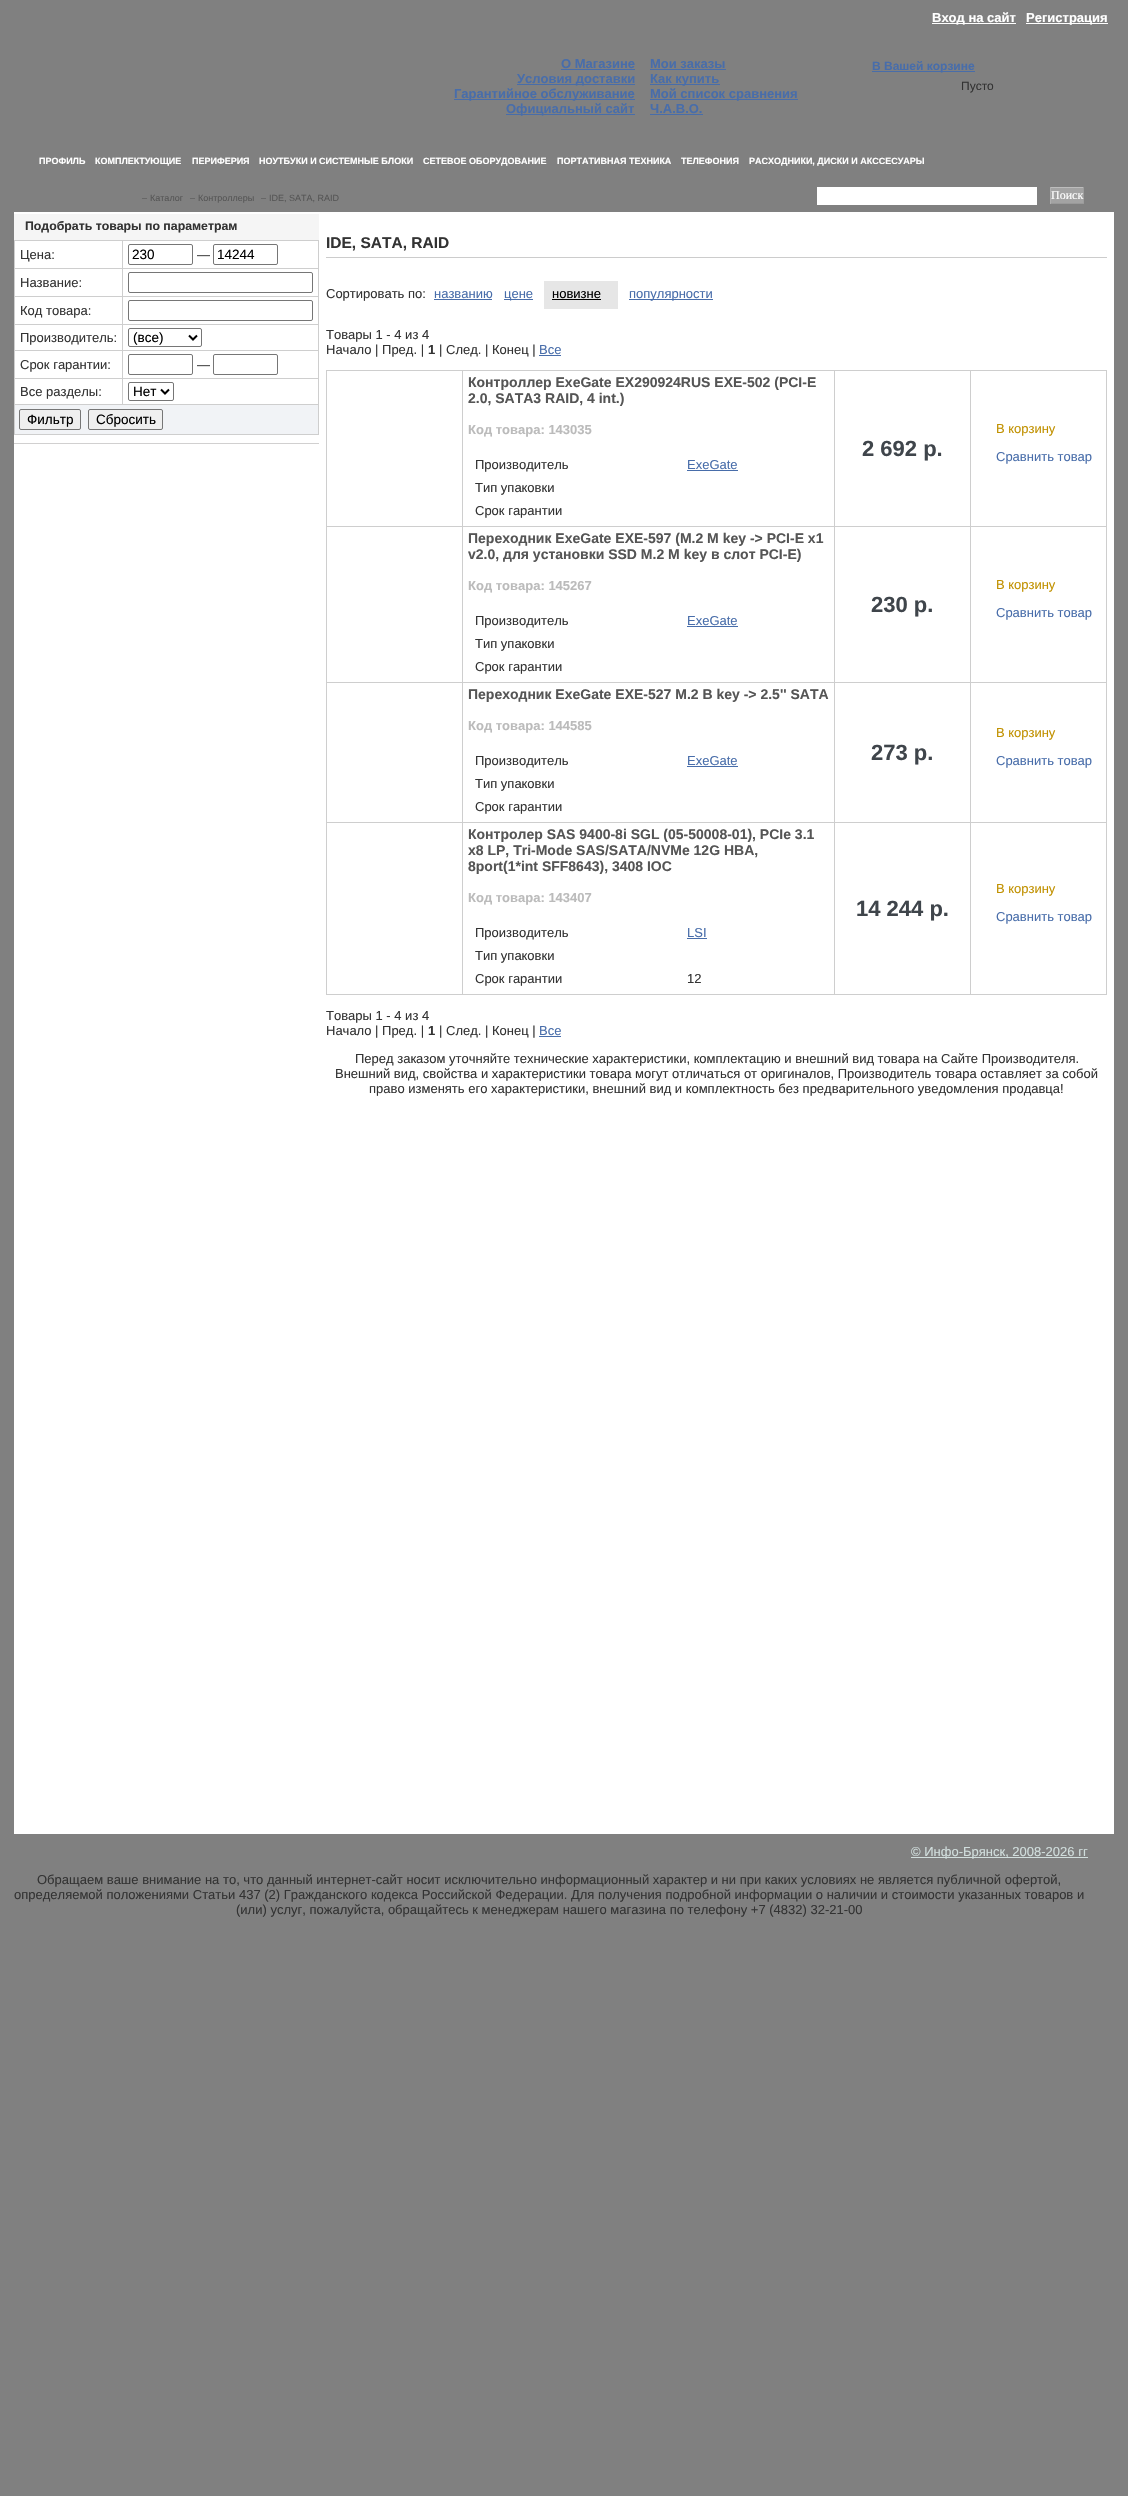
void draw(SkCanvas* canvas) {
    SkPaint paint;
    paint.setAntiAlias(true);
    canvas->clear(0xFF808080);
    paint.setColor(0xFFFFFFFF);
    canvas->drawRect(SkRect::MakeXYWH(932, 23, 84, 1), paint);
    SkFont font1(fontMgr->matchFamilyStyle("Liberation Sans", SkFontStyle::Bold()), 13);
    font1.setSubpixel(true);
    canvas->drawString("Вход на сайт", 932, 22, font1, paint);
    canvas->drawRect(SkRect::MakeXYWH(1026, 23, 82, 1), paint);
    canvas->drawString("Регистрация", 1026, 22, font1, paint);
    paint.setColor(0xFF486DAA);
    canvas->drawString("О Магазине", 561, 68, font1, paint);
    canvas->drawRect(SkRect::MakeXYWH(561, 69, 74, 1), paint);
    canvas->drawRect(SkRect::MakeXYWH(517, 84, 118, 1), paint);
    canvas->drawString("Условия доставки", 517, 83, font1, paint);
    canvas->drawRect(SkRect::MakeXYWH(454, 99, 181, 1), paint);
    canvas->drawString("Гарантийное обслуживание", 454, 98, font1, paint);
    canvas->drawRect(SkRect::MakeXYWH(506, 114, 129, 1), paint);
    canvas->drawString("Официальный сайт", 506, 113, font1, paint);
    canvas->drawString("Мои заказы", 650, 68, font1, paint);
    canvas->drawRect(SkRect::MakeXYWH(650, 69, 76, 1), paint);
    canvas->drawRect(SkRect::MakeXYWH(650, 84, 70, 1), paint);
    canvas->drawString("Как купить", 650, 83, font1, paint);
    canvas->drawRect(SkRect::MakeXYWH(650, 99, 148, 1), paint);
    canvas->drawString("Мой список сравнения", 650, 98, font1, paint);
    canvas->drawString("Ч.А.В.О.", 650, 113, font1, paint);
    canvas->drawRect(SkRect::MakeXYWH(650, 114, 53, 1), paint);
    canvas->drawRect(SkRect::MakeXYWH(872, 71, 103, 1), paint);
    SkFont font2(fontMgr->matchFamilyStyle("Liberation Sans", SkFontStyle::Bold()), 12);
    font2.setSubpixel(true);
    canvas->drawString("В Вашей корзине", 872, 70, font2, paint);
    SkFont font3(fontMgr->matchFamilyStyle("Liberation Sans", SkFontStyle::Normal()), 12);
    font3.setSubpixel(true);
    paint.setColor(0xFF333333);
    canvas->drawString("Пусто", 961, 90, font3, paint);
    SkFont font4(fontMgr->matchFamilyStyle("Liberation Sans", SkFontStyle::Bold()), 9);
    font4.setSubpixel(true);
    paint.setColor(0xFFFFFFFF);
    canvas->drawString("ПРОФИЛЬ", 39, 164, font4, paint);
    canvas->drawString("КОМПЛЕКТУЮЩИЕ", 95, 164, font4, paint);
    canvas->drawString("ПЕРИФЕРИЯ", 192, 164, font4, paint);
    canvas->drawString("НОУТБУКИ И СИСТЕМНЫЕ БЛОКИ", 259, 164, font4, paint);
    canvas->drawString("СЕТЕВОЕ ОБОРУДОВАНИЕ", 423, 164, font4, paint);
    canvas->drawString("ПОРТАТИВНАЯ ТЕХНИКА", 557, 164, font4, paint);
    canvas->drawString("ТЕЛЕФОНИЯ", 681, 164, font4, paint);
    canvas->drawString("РАСХОДНИКИ, ДИСКИ И АКССЕСУАРЫ", 749, 164, font4, paint);
    SkFont font5(fontMgr->matchFamilyStyle("Liberation Sans", SkFontStyle::Italic()), 9);
    font5.setSubpixel(true);
    paint.setColor(0xFF555555);
    canvas->drawString("–", 142, 201, font5, paint);
    SkFont font6(fontMgr->matchFamilyStyle("Liberation Sans", SkFontStyle::Normal()), 9);
    font6.setSubpixel(true);
    canvas->drawString("Каталог", 150, 201, font6, paint);
    canvas->drawString("–", 190, 201, font5, paint);
    canvas->drawString("Контроллеры", 198, 201, font6, paint);
    canvas->drawString("–", 261, 201, font5, paint);
    canvas->drawString("IDE, SATA, RAID", 269, 201, font6, paint);
    paint.setColor(0xFFFFFFFF);
    canvas->drawRect(SkRect::MakeXYWH(817, 187, 220, 18), paint);
    paint.setColor(0xFFA3A3A3);
    canvas->drawRect(SkRect::MakeXYWH(1051, 188, 32, 15), paint);
    paint.setColor(0xFFBDBDBD);
    canvas->drawRect(SkRect::MakeXYWH(1050, 187, 34, 1), paint);
    paint.setColor(0xFF9D9D9D);
    canvas->drawRect(SkRect::MakeXYWH(1083, 187, 1, 17), paint);
    paint.setColor(0xFF999999);
    canvas->drawRect(SkRect::MakeXYWH(1050, 203, 34, 1), paint);
    paint.setColor(0xFFB0B0B0);
    canvas->drawRect(SkRect::MakeXYWH(1050, 187, 1, 17), paint);
    SkFont font7(fontMgr->matchFamilyStyle("Liberation Serif", SkFontStyle::Normal()), 12);
    font7.setSubpixel(true);
    paint.setColor(0xFFFFFFFF);
    canvas->drawString("Поиск", 1051, 199, font7, paint);
    canvas->drawRect(SkRect::MakeXYWH(14, 212, 1100, 1622), paint);
    paint.setColor(0xFFF5F5F5);
    canvas->drawRect(SkRect::MakeXYWH(14, 214, 305, 26), paint);
    SkFont font8(fontMgr->matchFamilyStyle("Liberation Sans", SkFontStyle::Bold()), 12.3f);
    font8.setSubpixel(true);
    paint.setColor(0xFF333333);
    canvas->drawString("Подобрать товары по параметрам", 25, 230, font8, paint);
    paint.setColor(0xFFCECECE);
    canvas->drawRect(SkRect::MakeXYWH(14, 240, 305, 1), paint);
    canvas->drawRect(SkRect::MakeXYWH(318, 240, 1, 195), paint);
    canvas->drawRect(SkRect::MakeXYWH(14, 434, 305, 1), paint);
    canvas->drawRect(SkRect::MakeXYWH(14, 240, 1, 195), paint);
    SkFont font9(fontMgr->matchFamilyStyle("Liberation Sans", SkFontStyle::Normal()), 13);
    font9.setSubpixel(true);
    paint.setColor(0xFF333333);
    canvas->drawString("Цена:", 20, 259, font9, paint);
    paint.setColor(0xFFCECECE);
    canvas->drawRect(SkRect::MakeXYWH(122, 268, 197, 1), paint);
    canvas->drawRect(SkRect::MakeXYWH(122, 296, 197, 1), paint);
    canvas->drawRect(SkRect::MakeXYWH(122, 324, 197, 1), paint);
    canvas->drawRect(SkRect::MakeXYWH(122, 350, 197, 1), paint);
    canvas->drawRect(SkRect::MakeXYWH(122, 378, 197, 1), paint);
    canvas->drawRect(SkRect::MakeXYWH(14, 404, 305, 1), paint);
    canvas->drawRect(SkRect::MakeXYWH(122, 378, 1, 27), paint);
    canvas->drawRect(SkRect::MakeXYWH(14, 378, 109, 1), paint);
    canvas->drawRect(SkRect::MakeXYWH(122, 350, 1, 29), paint);
    canvas->drawRect(SkRect::MakeXYWH(14, 350, 109, 1), paint);
    canvas->drawRect(SkRect::MakeXYWH(122, 324, 1, 27), paint);
    canvas->drawRect(SkRect::MakeXYWH(14, 324, 109, 1), paint);
    canvas->drawRect(SkRect::MakeXYWH(122, 296, 1, 29), paint);
    canvas->drawRect(SkRect::MakeXYWH(14, 296, 109, 1), paint);
    canvas->drawRect(SkRect::MakeXYWH(122, 268, 1, 29), paint);
    canvas->drawRect(SkRect::MakeXYWH(14, 268, 109, 1), paint);
    canvas->drawRect(SkRect::MakeXYWH(122, 240, 1, 29), paint);
    paint.setStyle(SkPaint::kStroke_Style);
    paint.setStrokeWidth(1);
    paint.setColor(0xFF767676);
    canvas->drawRoundRect(SkRect::MakeXYWH(128.5f, 244.5f, 64, 20), 1.5f, 1.5f, paint);
    SkFont font10(fontMgr->matchFamilyStyle("Liberation Sans", SkFontStyle::Normal()), 13.5f);
    font10.setSubpixel(true);
    paint.setStyle(SkPaint::kFill_Style);
    paint.setColor(0xFF000000);
    canvas->drawString("230", 132, 259, font10, paint);
    paint.setColor(0xFF333333);
    canvas->drawString("—", 197, 259, font9, paint);
    paint.setStyle(SkPaint::kStroke_Style);
    paint.setColor(0xFF767676);
    canvas->drawRoundRect(SkRect::MakeXYWH(213.5f, 244.5f, 64, 20), 1.5f, 1.5f, paint);
    paint.setStyle(SkPaint::kFill_Style);
    paint.setColor(0xFF000000);
    canvas->drawString("14244", 217, 259, font10, paint);
    paint.setColor(0xFF333333);
    canvas->drawString("Название:", 20, 287, font9, paint);
    paint.setStyle(SkPaint::kStroke_Style);
    paint.setColor(0xFF767676);
    canvas->drawRoundRect(SkRect::MakeXYWH(128.5f, 272.5f, 184, 20), 1.5f, 1.5f, paint);
    paint.setStyle(SkPaint::kFill_Style);
    paint.setColor(0xFF333333);
    canvas->drawString("Код товара:", 20, 315, font9, paint);
    paint.setStyle(SkPaint::kStroke_Style);
    paint.setColor(0xFF767676);
    canvas->drawRoundRect(SkRect::MakeXYWH(128.5f, 300.5f, 184, 20), 1.5f, 1.5f, paint);
    paint.setStyle(SkPaint::kFill_Style);
    paint.setColor(0xFF333333);
    canvas->drawString("Производитель:", 20, 342, font9, paint);
    paint.setStyle(SkPaint::kStroke_Style);
    paint.setColor(0xFF767676);
    canvas->drawRoundRect(SkRect::MakeXYWH(128.5f, 328.5f, 73, 18), 1.5f, 1.5f, paint);
    paint.setStrokeWidth(2);
    paint.setColor(0xFF000000);
    canvas->drawPath(SkPathBuilder().moveTo(189, 335.5f).lineTo(193, 339.5f).lineTo(197, 335.5f).detach(), paint);
    paint.setStyle(SkPaint::kFill_Style);
    canvas->drawString("(все)", 133, 342, font10, paint);
    paint.setColor(0xFF333333);
    canvas->drawString("Срок гарантии:", 20, 369, font9, paint);
    paint.setStyle(SkPaint::kStroke_Style);
    paint.setStrokeWidth(1);
    paint.setColor(0xFF767676);
    canvas->drawRoundRect(SkRect::MakeXYWH(128.5f, 354.5f, 64, 20), 1.5f, 1.5f, paint);
    paint.setStyle(SkPaint::kFill_Style);
    paint.setColor(0xFF333333);
    canvas->drawString("—", 197, 369, font9, paint);
    paint.setStyle(SkPaint::kStroke_Style);
    paint.setColor(0xFF767676);
    canvas->drawRoundRect(SkRect::MakeXYWH(213.5f, 354.5f, 64, 20), 1.5f, 1.5f, paint);
    paint.setStyle(SkPaint::kFill_Style);
    paint.setColor(0xFF333333);
    canvas->drawString("Все разделы:", 20, 396, font9, paint);
    paint.setStyle(SkPaint::kStroke_Style);
    paint.setColor(0xFF767676);
    canvas->drawRoundRect(SkRect::MakeXYWH(128.5f, 382.5f, 45, 18), 1.5f, 1.5f, paint);
    paint.setStrokeWidth(2);
    paint.setColor(0xFF000000);
    canvas->drawPath(SkPathBuilder().moveTo(161, 389.5f).lineTo(165, 393.5f).lineTo(169, 389.5f).detach(), paint);
    paint.setStyle(SkPaint::kFill_Style);
    canvas->drawString("Нет", 133, 396, font10, paint);
    paint.setColor(0xFFF1F3F6);
    canvas->drawRect(SkRect::MakeXYWH(15, 405, 303, 29), paint);
    paint.setColor(0xFFEFEFEF);
    canvas->drawRoundRect(SkRect::MakeXYWH(19.5f, 409.5f, 61, 20), 1.5f, 1.5f, paint);
    paint.setStyle(SkPaint::kStroke_Style);
    paint.setStrokeWidth(1);
    paint.setColor(0xFF767676);
    canvas->drawRoundRect(SkRect::MakeXYWH(19.5f, 409.5f, 61, 20), 1.5f, 1.5f, paint);
    paint.setStyle(SkPaint::kFill_Style);
    paint.setColor(0xFF000000);
    canvas->drawString("Фильтр", 27, 424, font10, paint);
    paint.setColor(0xFFEFEFEF);
    canvas->drawRoundRect(SkRect::MakeXYWH(88.5f, 409.5f, 74, 20), 1.5f, 1.5f, paint);
    paint.setStyle(SkPaint::kStroke_Style);
    paint.setColor(0xFF767676);
    canvas->drawRoundRect(SkRect::MakeXYWH(88.5f, 409.5f, 74, 20), 1.5f, 1.5f, paint);
    paint.setStyle(SkPaint::kFill_Style);
    paint.setColor(0xFF000000);
    canvas->drawString("Сбросить", 96, 424, font10, paint);
    paint.setColor(0xFFD1D0D0);
    canvas->drawRect(SkRect::MakeXYWH(14, 443, 305, 1), paint);
    paint.setColor(0xFFCCCCCC);
    canvas->drawRect(SkRect::MakeXYWH(326, 257, 781, 1), paint);
    SkFont font11(fontMgr->matchFamilyStyle("Liberation Sans", SkFontStyle::Bold()), 15.5f);
    font11.setSubpixel(true);
    paint.setColor(0xFF333333);
    canvas->drawString("IDE, SATA, RAID", 326, 248, font11, paint);
    canvas->drawString("Сортировать по:", 326, 298, font9, paint);
    paint.setColor(0xFF486DAA);
    canvas->drawString("названию", 434, 298, font9, paint);
    canvas->drawRect(SkRect::MakeXYWH(434, 299, 58, 1), paint);
    canvas->drawRect(SkRect::MakeXYWH(504, 299, 29, 1), paint);
    canvas->drawString("цене", 504, 298, font9, paint);
    paint.setColor(0xFFE6E6E6);
    canvas->drawRect(SkRect::MakeXYWH(544, 281, 74, 28), paint);
    paint.setColor(0xFF000000);
    canvas->drawString("новизне", 552, 298, font9, paint);
    canvas->drawRect(SkRect::MakeXYWH(552, 299, 49, 1), paint);
    paint.setColor(0xFF486DAA);
    canvas->drawRect(SkRect::MakeXYWH(629, 299, 84, 1), paint);
    canvas->drawString("популярности", 629, 298, font9, paint);
    paint.setColor(0xFF333333);
    canvas->drawString("Товары 1 - 4 из 4", 326, 339, font9, paint);
    canvas->drawString("Начало | Пред. |", 326, 354, font9, paint);
    canvas->drawString("1", 428, 354, font1, paint);
    canvas->drawString("| След. | Конец |", 439, 354, font9, paint);
    paint.setColor(0xFF486DAA);
    canvas->drawString("Все", 539, 354, font9, paint);
    canvas->drawRect(SkRect::MakeXYWH(539, 355, 22, 1), paint);
    paint.setColor(0xFFCECECE);
    canvas->drawRect(SkRect::MakeXYWH(326, 370, 781, 1), paint);
    canvas->drawRect(SkRect::MakeXYWH(1106, 370, 1, 625), paint);
    canvas->drawRect(SkRect::MakeXYWH(326, 994, 781, 1), paint);
    canvas->drawRect(SkRect::MakeXYWH(326, 370, 1, 625), paint);
    canvas->drawRect(SkRect::MakeXYWH(970, 526, 137, 1), paint);
    canvas->drawRect(SkRect::MakeXYWH(970, 682, 137, 1), paint);
    canvas->drawRect(SkRect::MakeXYWH(970, 822, 137, 1), paint);
    canvas->drawRect(SkRect::MakeXYWH(970, 822, 1, 173), paint);
    canvas->drawRect(SkRect::MakeXYWH(834, 822, 137, 1), paint);
    canvas->drawRect(SkRect::MakeXYWH(970, 682, 1, 141), paint);
    canvas->drawRect(SkRect::MakeXYWH(834, 682, 137, 1), paint);
    canvas->drawRect(SkRect::MakeXYWH(970, 526, 1, 157), paint);
    canvas->drawRect(SkRect::MakeXYWH(834, 526, 137, 1), paint);
    canvas->drawRect(SkRect::MakeXYWH(834, 822, 1, 173), paint);
    canvas->drawRect(SkRect::MakeXYWH(462, 822, 373, 1), paint);
    canvas->drawRect(SkRect::MakeXYWH(834, 682, 1, 141), paint);
    canvas->drawRect(SkRect::MakeXYWH(462, 682, 373, 1), paint);
    canvas->drawRect(SkRect::MakeXYWH(834, 526, 1, 157), paint);
    canvas->drawRect(SkRect::MakeXYWH(462, 526, 373, 1), paint);
    canvas->drawRect(SkRect::MakeXYWH(462, 822, 1, 173), paint);
    canvas->drawRect(SkRect::MakeXYWH(326, 822, 137, 1), paint);
    canvas->drawRect(SkRect::MakeXYWH(462, 682, 1, 141), paint);
    canvas->drawRect(SkRect::MakeXYWH(326, 682, 137, 1), paint);
    canvas->drawRect(SkRect::MakeXYWH(462, 526, 1, 157), paint);
    canvas->drawRect(SkRect::MakeXYWH(326, 526, 137, 1), paint);
    canvas->drawRect(SkRect::MakeXYWH(462, 370, 1, 157), paint);
    SkFont font12(fontMgr->matchFamilyStyle("Liberation Sans", SkFontStyle::Bold()), 14);
    font12.setSubpixel(true);
    paint.setColor(0xFF555555);
    canvas->drawString("Контроллер ExeGate EX290924RUS EXE-502 (PCI-E", 468, 387, font12, paint);
    canvas->drawString("2.0, SATA3 RAID, 4 int.)", 468, 403, font12, paint);
    paint.setColor(0xFFBBBBBB);
    canvas->drawString("Код товара: 143035", 468, 434, font1, paint);
    paint.setColor(0xFF333333);
    canvas->drawString("Производитель", 475, 469, font9, paint);
    paint.setColor(0xFF486DAA);
    canvas->drawString("ExeGate", 687, 469, font9, paint);
    canvas->drawRect(SkRect::MakeXYWH(687, 470, 51, 1), paint);
    paint.setColor(0xFF333333);
    canvas->drawString("Тип упаковки", 475, 492, font9, paint);
    canvas->drawString("Срок гарантии", 475, 515, font9, paint);
    paint.setColor(0xFFCECECE);
    canvas->drawRect(SkRect::MakeXYWH(834, 370, 1, 157), paint);
    SkFont font13(fontMgr->matchFamilyStyle("Liberation Sans", SkFontStyle::Bold()), 22);
    font13.setSubpixel(true);
    paint.setColor(0xFF3F454B);
    canvas->drawString("2 692 р.", 862, 456, font13, paint);
    paint.setColor(0xFFCECECE);
    canvas->drawRect(SkRect::MakeXYWH(970, 370, 1, 157), paint);
    paint.setColor(0xFFC19100);
    canvas->drawString("В корзину", 996, 433, font9, paint);
    paint.setColor(0xFF486DAA);
    canvas->drawString("Сравнить товар", 996, 461, font9, paint);
    paint.setColor(0xFF555555);
    canvas->drawString("Переходник ExeGate EXE-597 (M.2 M key -> PCI-E x1", 468, 543, font12, paint);
    canvas->drawString("v2.0, для установки SSD M.2 M key в слот PCI-E)", 468, 559, font12, paint);
    paint.setColor(0xFFBBBBBB);
    canvas->drawString("Код товара: 145267", 468, 590, font1, paint);
    paint.setColor(0xFF333333);
    canvas->drawString("Производитель", 475, 625, font9, paint);
    paint.setColor(0xFF486DAA);
    canvas->drawString("ExeGate", 687, 625, font9, paint);
    canvas->drawRect(SkRect::MakeXYWH(687, 626, 51, 1), paint);
    paint.setColor(0xFF333333);
    canvas->drawString("Тип упаковки", 475, 648, font9, paint);
    canvas->drawString("Срок гарантии", 475, 671, font9, paint);
    paint.setColor(0xFF3F454B);
    canvas->drawString("230 р.", 871, 612, font13, paint);
    paint.setColor(0xFFC19100);
    canvas->drawString("В корзину", 996, 589, font9, paint);
    paint.setColor(0xFF486DAA);
    canvas->drawString("Сравнить товар", 996, 617, font9, paint);
    paint.setColor(0xFF555555);
    canvas->drawString("Переходник ExeGate EXE-527 M.2 B key -> 2.5'' SATA", 468, 699, font12, paint);
    paint.setColor(0xFFBBBBBB);
    canvas->drawString("Код товара: 144585", 468, 730, font1, paint);
    paint.setColor(0xFF333333);
    canvas->drawString("Производитель", 475, 765, font9, paint);
    paint.setColor(0xFF486DAA);
    canvas->drawString("ExeGate", 687, 765, font9, paint);
    canvas->drawRect(SkRect::MakeXYWH(687, 766, 51, 1), paint);
    paint.setColor(0xFF333333);
    canvas->drawString("Тип упаковки", 475, 788, font9, paint);
    canvas->drawString("Срок гарантии", 475, 811, font9, paint);
    paint.setColor(0xFF3F454B);
    canvas->drawString("273 р.", 871, 760, font13, paint);
    paint.setColor(0xFFC19100);
    canvas->drawString("В корзину", 996, 737, font9, paint);
    paint.setColor(0xFF486DAA);
    canvas->drawString("Сравнить товар", 996, 765, font9, paint);
    paint.setColor(0xFF555555);
    canvas->drawString("Контролер SAS 9400-8i SGL (05-50008-01), PCIe 3.1", 468, 839, font12, paint);
    canvas->drawString("x8 LP, Tri-Mode SAS/SATA/NVMe 12G HBA,", 468, 855, font12, paint);
    canvas->drawString("8port(1*int SFF8643), 3408 IOC", 468, 871, font12, paint);
    paint.setColor(0xFFBBBBBB);
    canvas->drawString("Код товара: 143407", 468, 902, font1, paint);
    paint.setColor(0xFF333333);
    canvas->drawString("Производитель", 475, 937, font9, paint);
    paint.setColor(0xFF486DAA);
    canvas->drawString("LSI", 687, 937, font9, paint);
    canvas->drawRect(SkRect::MakeXYWH(687, 938, 20, 1), paint);
    paint.setColor(0xFF333333);
    canvas->drawString("Тип упаковки", 475, 960, font9, paint);
    canvas->drawString("Срок гарантии", 475, 983, font9, paint);
    canvas->drawString("12", 687, 983, font9, paint);
    paint.setColor(0xFF3F454B);
    canvas->drawString("14 244 р.", 856, 916, font13, paint);
    paint.setColor(0xFFC19100);
    canvas->drawString("В корзину", 996, 893, font9, paint);
    paint.setColor(0xFF486DAA);
    canvas->drawString("Сравнить товар", 996, 921, font9, paint);
    paint.setColor(0xFF333333);
    canvas->drawString("Товары 1 - 4 из 4", 326, 1020, font9, paint);
    canvas->drawString("Начало | Пред. |", 326, 1035, font9, paint);
    canvas->drawString("1", 428, 1035, font1, paint);
    canvas->drawString("| След. | Конец |", 439, 1035, font9, paint);
    paint.setColor(0xFF486DAA);
    canvas->drawString("Все", 539, 1035, font9, paint);
    canvas->drawRect(SkRect::MakeXYWH(539, 1036, 22, 1), paint);
    paint.setColor(0xFF333333);
    canvas->drawString("Перед заказом уточняйте технические характеристики, комплектацию и внешний вид товара на Сайте Производителя.", 355, 1063, font9, paint);
    canvas->drawString("Внешний вид, свойства и характеристики товара могут отличаться от оригиналов, Производитель товара оставляет за собой", 335, 1078, font9, paint);
    canvas->drawString("право изменять его характеристики, внешний вид и комплектность без предварительного уведомления продавца!", 369, 1093, font9, paint);
    paint.setColor(0xFFD1DEDD);
    canvas->drawRect(SkRect::MakeXYWH(911, 1857, 177, 1), paint);
    canvas->drawString("© Инфо-Брянск, 2008-2026 гг", 911, 1856, font9, paint);
    paint.setColor(0xFF333333);
    canvas->drawString("Обращаем ваше внимание на то, что данный интернет-сайт носит исключительно информационный характер и ни при каких условиях не является публичной офертой,", 37, 1884, font9, paint);
    canvas->drawString("определяемой положениями Статьи 437 (2) Гражданского кодекса Российской Федерации. Для получения подробной информации о наличии и стоимости указанных товаров и", 14, 1899, font9, paint);
    canvas->drawString("(или) услуг, пожалуйста, обращайтесь к менеджерам нашего магазина по телефону +7 (4832) 32-21-00", 236, 1914, font9, paint);
}
